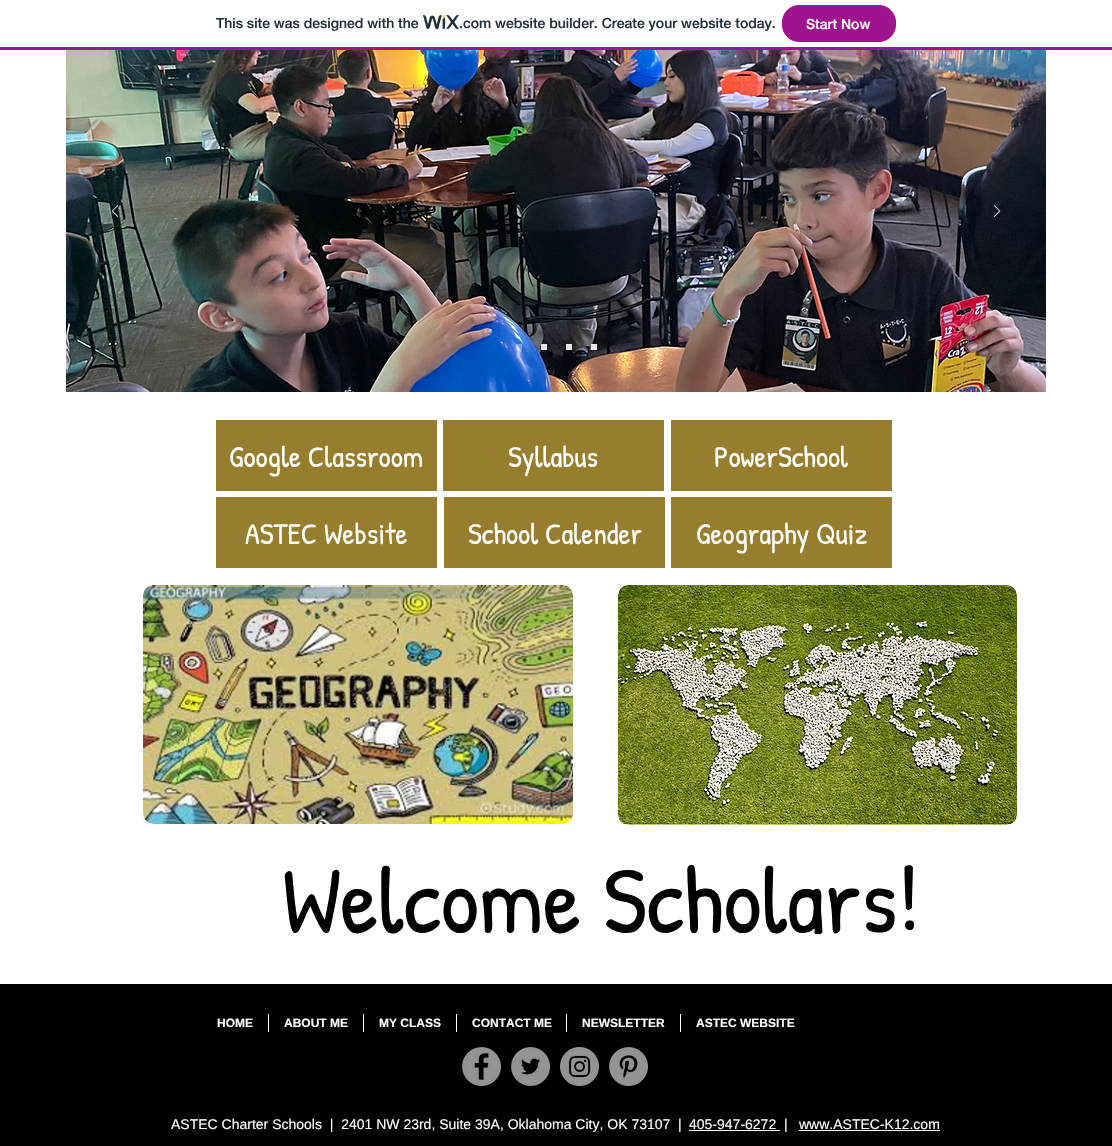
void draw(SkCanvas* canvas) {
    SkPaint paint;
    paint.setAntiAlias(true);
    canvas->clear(0xFFFFFFFF);
    paint.setColor(0xFFA0138E);
    canvas->drawRect(SkRect::MakeXYWH(0, 47, 1112, 3), paint);
    SkFont font1(fontMgr->matchFamilyStyle("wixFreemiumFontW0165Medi", SkFontStyle(500, SkFontStyle::kNormal_Width, SkFontStyle::kUpright_Slant)), 14);
    font1.setSubpixel(true);
    paint.setColor(0xFF20303C);
    canvas->drawString("This site was designed with the", 216, 28, font1, paint);
    canvas->drawImageRect(SkImages::DeferredFromEncodedData(SkData::MakeFromFileName("img1.png")), SkRect::MakeXYWH(423, 15, 36, 15), SkSamplingOptions());
    canvas->drawString(".com website builder. Create your website today.", 459, 28, font1, paint);
    paint.setColor(0xFFA0138E);
    canvas->drawRoundRect(SkRect::MakeXYWH(782.5f, 5.5f, 113, 36), 16.5f, 16.5f, paint);
    paint.setStyle(SkPaint::kStroke_Style);
    paint.setStrokeWidth(1);
    canvas->drawRoundRect(SkRect::MakeXYWH(782.5f, 5.5f, 113, 36), 16.5f, 16.5f, paint);
    paint.setStyle(SkPaint::kFill_Style);
    paint.setColor(0xFFFFFFFE);
    canvas->drawString("Start Now", 806, 29, font1, paint);
    canvas->drawImageRect(SkImages::DeferredFromEncodedData(SkData::MakeFromFileName("img2.png")), SkRect::MakeXYWH(66, 50, 980, 342), SkSamplingOptions());
    canvas->drawImageRect(SkImages::DeferredFromEncodedData(SkData::MakeFromFileName("img3.png")), SkRect::MakeXYWH(111, 205, 8, 12), SkSamplingOptions());
    canvas->drawImageRect(SkImages::DeferredFromEncodedData(SkData::MakeFromFileName("img4.png")), SkRect::MakeXYWH(993, 205, 8, 12), SkSamplingOptions());
    paint.setColor(0x5CFFFFFF);
    canvas->drawRect(SkRect::MakeXYWH(516, 344, 6, 6), paint);
    paint.setColor(0xFFE8E6E6);
    canvas->drawRect(SkRect::MakeXYWH(541, 344, 6, 6), paint);
    canvas->drawRect(SkRect::MakeXYWH(566, 344, 6, 6), paint);
    canvas->drawRect(SkRect::MakeXYWH(591, 344, 6, 6), paint);
    paint.setColor(0xFF977E2F);
    canvas->drawRect(SkRect::MakeXYWH(216, 420, 221, 71), paint);
    SkFont font2(fontMgr->matchFamilyStyle("Patrick Hand", SkFontStyle::Normal()), 30);
    font2.setSubpixel(true);
    paint.setColor(0xFFFFFFFE);
    canvas->drawString("Google Classroom", 229, 467, font2, paint);
    paint.setColor(0xFF977E2F);
    canvas->drawRect(SkRect::MakeXYWH(443, 420, 221, 71), paint);
    paint.setColor(0xFFFFFFFE);
    canvas->drawString("Syllabus", 508, 467, font2, paint);
    paint.setColor(0xFF977E2F);
    canvas->drawRect(SkRect::MakeXYWH(671, 420, 221, 71), paint);
    paint.setColor(0xFFFFFFFE);
    canvas->drawString("PowerSchool", 714, 467, font2, paint);
    paint.setColor(0xFF977E2F);
    canvas->drawRect(SkRect::MakeXYWH(216, 497, 221, 71), paint);
    paint.setColor(0xFFFFFFFE);
    canvas->drawString("ASTEC Website", 245, 544, font2, paint);
    paint.setColor(0xFF977E2F);
    canvas->drawRect(SkRect::MakeXYWH(444, 497, 221, 71), paint);
    paint.setColor(0xFFFFFFFE);
    canvas->drawString("School Calender", 468, 544, font2, paint);
    paint.setColor(0xFF977E2F);
    canvas->drawRect(SkRect::MakeXYWH(671, 497, 221, 71), paint);
    paint.setColor(0xFFFFFFFE);
    canvas->drawString("Geography Quiz", 696, 544, font2, paint);
    canvas->drawImageRect(SkImages::DeferredFromEncodedData(SkData::MakeFromFileName("img5.png")), SkRect::MakeXYWH(143, 585, 430, 239), SkSamplingOptions());
    canvas->drawImageRect(SkImages::DeferredFromEncodedData(SkData::MakeFromFileName("img6.png")), SkRect::MakeXYWH(618, 585, 399, 240), SkSamplingOptions());
    SkFont font3(fontMgr->matchFamilyStyle("Patrick Hand", SkFontStyle::Normal()), 95);
    font3.setSubpixel(true);
    paint.setColor(0xFF000000);
    canvas->drawString("Welcome Scholars!", 282, 933, font3, paint);
    canvas->drawRect(SkRect::MakeXYWH(0, 984, 1112, 162), paint);
    SkFont font4(fontMgr->matchFamilyStyle("Liberation Sans", SkFontStyle::Bold()), 12);
    font4.setSubpixel(true);
    paint.setColor(0xFFFFFFFE);
    canvas->drawString("HOME", 217, 1027, font4, paint);
    paint.setColor(0xFFFFFFFF);
    canvas->drawRect(SkRect::MakeXYWH(268, 1014, 1, 18), paint);
    paint.setColor(0xFFFFFFFE);
    canvas->drawString("ABOUT ME", 284, 1027, font4, paint);
    paint.setColor(0xFFFFFFFF);
    canvas->drawRect(SkRect::MakeXYWH(363, 1014, 1, 18), paint);
    paint.setColor(0xFFFFFFFE);
    canvas->drawString("MY CLASS", 379, 1027, font4, paint);
    paint.setColor(0xFFFFFFFF);
    canvas->drawRect(SkRect::MakeXYWH(456, 1014, 1, 18), paint);
    paint.setColor(0xFFFFFFFE);
    canvas->drawString("CONTACT ME", 472, 1027, font4, paint);
    paint.setColor(0xFFFFFFFF);
    canvas->drawRect(SkRect::MakeXYWH(566, 1014, 1, 18), paint);
    paint.setColor(0xFFFFFFFE);
    canvas->drawString("NEWSLETTER", 582, 1027, font4, paint);
    paint.setColor(0xFFFFFFFF);
    canvas->drawRect(SkRect::MakeXYWH(680, 1014, 1, 18), paint);
    paint.setColor(0xFFFFFFFE);
    canvas->drawString("ASTEC WEBSITE", 696, 1027, font4, paint);
    canvas->drawImageRect(SkImages::DeferredFromEncodedData(SkData::MakeFromFileName("img7.png")), SkRect::MakeXYWH(462, 1047, 39, 39), SkSamplingOptions());
    canvas->drawImageRect(SkImages::DeferredFromEncodedData(SkData::MakeFromFileName("img8.png")), SkRect::MakeXYWH(511, 1047, 39, 39), SkSamplingOptions());
    canvas->drawImageRect(SkImages::DeferredFromEncodedData(SkData::MakeFromFileName("img9.png")), SkRect::MakeXYWH(560, 1047, 39, 39), SkSamplingOptions());
    canvas->drawImageRect(SkImages::DeferredFromEncodedData(SkData::MakeFromFileName("img10.png")), SkRect::MakeXYWH(609, 1047, 39, 39), SkSamplingOptions());
    SkFont font5(fontMgr->matchFamilyStyle("Liberation Sans", SkFontStyle::Normal()), 14);
    font5.setSubpixel(true);
    canvas->drawString("ASTEC Charter Schools  |  2401 NW 23rd, Suite 39A, Oklahoma City, OK 73107  |", 171, 1129, font5, paint);
    canvas->drawString("405-947-6272", 689, 1129, font5, paint);
    canvas->drawRect(SkRect::MakeXYWH(689, 1130, 91, 1), paint);
    canvas->drawString("|", 784, 1129, font5, paint);
    canvas->drawString("www.ASTEC-K12.com", 799, 1129, font5, paint);
    canvas->drawRect(SkRect::MakeXYWH(799, 1130, 141, 1), paint);
}
